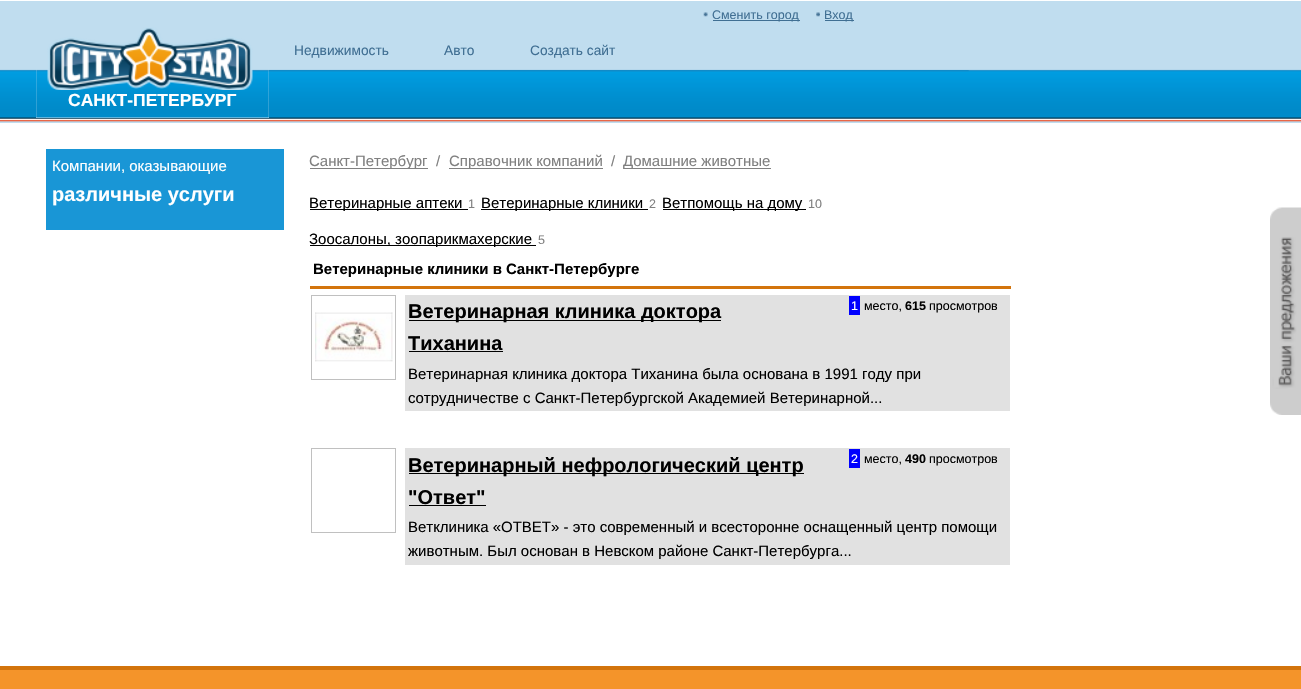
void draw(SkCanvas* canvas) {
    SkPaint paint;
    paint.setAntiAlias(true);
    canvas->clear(0xFFFFFFFF);
    paint.setColor(0xFFC0DDEF);
    canvas->drawRect(SkRect::MakeXYWH(0, 1, 1301, 122), paint);
    canvas->drawImageRect(SkImages::DeferredFromEncodedData(SkData::MakeFromFileName("img1.png")), SkRect::MakeXYWH(0, 69, 1301, 53), SkSamplingOptions());
    canvas->drawImageRect(SkImages::DeferredFromEncodedData(SkData::MakeFromFileName("img2.png")), SkRect::MakeXYWH(703, 12, 5, 5), SkSamplingOptions());
    paint.setColor(0xFF406F93);
    canvas->drawRect(SkRect::MakeXYWH(713, 20, 87, 1), paint);
    SkFont font1(fontMgr->matchFamilyStyle("Liberation Sans", SkFontStyle::Normal()), 12.5f);
    font1.setSubpixel(true);
    canvas->drawString("Сменить город", 712, 19, font1, paint);
    canvas->drawImageRect(SkImages::DeferredFromEncodedData(SkData::MakeFromFileName("img3.png")), SkRect::MakeXYWH(816, 12, 4, 5), SkSamplingOptions());
    canvas->drawRect(SkRect::MakeXYWH(825, 20, 29, 1), paint);
    canvas->drawString("Вход", 824, 19, font1, paint);
    paint.setColor(0xFFC0DDEF);
    canvas->drawRect(SkRect::MakeXYWH(36, 69, 233, 49), paint);
    canvas->drawImageRect(SkImages::DeferredFromEncodedData(SkData::MakeFromFileName("img5.png")), SkRect::MakeXYWH(36, 69, 233, 49), SkSamplingOptions());
    canvas->drawImageRect(SkImages::DeferredFromEncodedData(SkData::MakeFromFileName("img4.png")), SkRect::MakeXYWH(268, 70, 701, 2), SkSamplingOptions());
    SkFont font2(fontMgr->matchFamilyStyle("Liberation Sans", SkFontStyle::Normal()), 13.75f);
    font2.setSubpixel(true);
    paint.setColor(0xFF406F93);
    canvas->drawString("Недвижимость", 294, 55, font2, paint);
    canvas->drawString("Авто", 444, 55, font2, paint);
    canvas->drawString("Создать сайт", 530, 55, font2, paint);
    canvas->drawImageRect(SkImages::DeferredFromEncodedData(SkData::MakeFromFileName("img6.png")), SkRect::MakeXYWH(47, 27, 206, 63), SkSamplingOptions());
    SkFont font3(fontMgr->matchFamilyStyle("Liberation Sans", SkFontStyle::Bold()), 17.5f);
    font3.setSubpixel(true);
    paint.setColor(0xFFFFFFFF);
    canvas->drawString("САНКТ-ПЕТЕРБУРГ", 68, 106, font3, paint);
    paint.setColor(0xFF1996D6);
    canvas->drawRect(SkRect::MakeXYWH(46, 149, 238, 81), paint);
    SkFont font4(fontMgr->matchFamilyStyle("Liberation Sans", SkFontStyle::Normal()), 15);
    font4.setSubpixel(true);
    paint.setColor(0xFFFFFFFF);
    canvas->drawString("Компании, оказывающие", 52, 171, font4, paint);
    SkFont font5(fontMgr->matchFamilyStyle("Liberation Sans", SkFontStyle::Bold()), 20);
    font5.setSubpixel(true);
    canvas->drawString("различные услуги", 52, 201, font5, paint);
    paint.setColor(0xFF808080);
    canvas->drawRect(SkRect::MakeXYWH(310, 168, 118, 1), paint);
    canvas->drawString("Санкт-Петербург", 309, 166, font4, paint);
    canvas->drawString("/", 436, 166, font4, paint);
    canvas->drawRect(SkRect::MakeXYWH(449, 168, 154, 1), paint);
    canvas->drawString("Справочник компаний", 449, 166, font4, paint);
    canvas->drawString("/", 611, 166, font4, paint);
    canvas->drawRect(SkRect::MakeXYWH(624, 168, 147, 1), paint);
    canvas->drawString("Домашние животные", 623, 166, font4, paint);
    paint.setColor(0xFF000000);
    canvas->drawRect(SkRect::MakeXYWH(310, 209, 158, 1), paint);
    canvas->drawString("Ветеринарные аптеки", 309, 208, font4, paint);
    paint.setColor(0xFF808080);
    canvas->drawString("1", 468, 208, font1, paint);
    paint.setColor(0xFF000000);
    canvas->drawRect(SkRect::MakeXYWH(481, 209, 167, 1), paint);
    canvas->drawString("Ветеринарные клиники", 481, 208, font4, paint);
    paint.setColor(0xFF808080);
    canvas->drawString("2", 649, 208, font1, paint);
    paint.setColor(0xFF000000);
    canvas->drawRect(SkRect::MakeXYWH(663, 209, 143, 1), paint);
    canvas->drawString("Ветпомощь на дому", 662, 208, font4, paint);
    paint.setColor(0xFF808080);
    canvas->drawString("10", 808, 208, font1, paint);
    paint.setColor(0xFF000000);
    canvas->drawRect(SkRect::MakeXYWH(310, 245, 226, 1), paint);
    canvas->drawString("Зоосалоны, зоопарикмахерские", 309, 244, font4, paint);
    paint.setColor(0xFF808080);
    canvas->drawString("5", 538, 244, font1, paint);
    SkFont font6(fontMgr->matchFamilyStyle("Liberation Sans", SkFontStyle::Bold()), 15);
    font6.setSubpixel(true);
    paint.setColor(0xFF000000);
    canvas->drawString("Ветеринарные клиники в Санкт-Петербурге", 313, 274, font6, paint);
    paint.setColor(0xFFD3740C);
    canvas->drawRect(SkRect::MakeXYWH(310, 286, 701, 3), paint);
    paint.setStyle(SkPaint::kStroke_Style);
    paint.setStrokeWidth(1);
    paint.setColor(0xFFC0C0C0);
    canvas->drawRect(SkRect::MakeXYWH(311.5f, 295.5f, 84, 84), paint);
    canvas->drawImageRect(SkImages::DeferredFromEncodedData(SkData::MakeFromFileName("img7.png")), SkRect::MakeXYWH(315, 312, 78, 50), SkSamplingOptions());
    paint.setStyle(SkPaint::kFill_Style);
    paint.setColor(0xFFE1E1E1);
    canvas->drawRect(SkRect::MakeXYWH(405, 295, 605, 116), paint);
    paint.setColor(0xFF000000);
    canvas->drawRect(SkRect::MakeXYWH(409, 320, 312, 1), paint);
    canvas->drawString("Ветеринарная клиника доктора", 408, 318, font5, paint);
    canvas->drawString("Тиханина", 408, 350, font5, paint);
    canvas->drawRect(SkRect::MakeXYWH(409, 351, 94, 1), paint);
    paint.setColor(0xFF0000FE);
    canvas->drawRect(SkRect::MakeXYWH(849, 296, 11, 19), paint);
    paint.setColor(0xFFFFFFFF);
    canvas->drawString("1", 851, 310, font1, paint);
    paint.setColor(0xFF000000);
    canvas->drawString("место,", 864, 310, font1, paint);
    SkFont font7(fontMgr->matchFamilyStyle("Liberation Sans", SkFontStyle::Bold()), 12.5f);
    font7.setSubpixel(true);
    canvas->drawString("615", 905, 310, font7, paint);
    canvas->drawString("просмотров", 929, 310, font1, paint);
    canvas->drawString("Ветеринарная клиника доктора Тиханина была основана в 1991 году при", 408, 379, font4, paint);
    canvas->drawString("сотрудничестве с Санкт-Петербургской Академией Ветеринарной...", 408, 403, font4, paint);
    paint.setStyle(SkPaint::kStroke_Style);
    paint.setColor(0xFFC0C0C0);
    canvas->drawRect(SkRect::MakeXYWH(311.5f, 448.5f, 84, 84), paint);
    paint.setStyle(SkPaint::kFill_Style);
    paint.setColor(0xFFE1E1E1);
    canvas->drawRect(SkRect::MakeXYWH(405, 448, 605, 117), paint);
    paint.setColor(0xFF000000);
    canvas->drawRect(SkRect::MakeXYWH(409, 473, 395, 1), paint);
    canvas->drawString("Ветеринарный нефрологический центр", 408, 472, font5, paint);
    canvas->drawString("\"Ответ\"", 408, 504, font5, paint);
    canvas->drawRect(SkRect::MakeXYWH(409, 505, 77, 1), paint);
    paint.setColor(0xFF0000FE);
    canvas->drawRect(SkRect::MakeXYWH(849, 449, 11, 19), paint);
    paint.setColor(0xFFFFFFFF);
    canvas->drawString("2", 851, 463, font1, paint);
    paint.setColor(0xFF000000);
    canvas->drawString("место,", 864, 463, font1, paint);
    canvas->drawString("490", 905, 463, font7, paint);
    canvas->drawString("просмотров", 929, 463, font1, paint);
    canvas->drawString("Ветклиника «ОТВЕТ» - это современный и всесторонне оснащенный центр помощи", 408, 532, font4, paint);
    canvas->drawString("животным. Был основан в Невском районе Санкт-Петербурга...", 408, 556, font4, paint);
    canvas->drawImageRect(SkImages::DeferredFromEncodedData(SkData::MakeFromFileName("img8.png")), SkRect::MakeXYWH(1270, 207, 31, 208), SkSamplingOptions());
    paint.setColor(0xFFF4942A);
    canvas->drawRect(SkRect::MakeXYWH(0, 670, 1301, 19), paint);
    paint.setColor(0xFFD3740C);
    canvas->drawRect(SkRect::MakeXYWH(0, 666, 1301, 4), paint);
}
